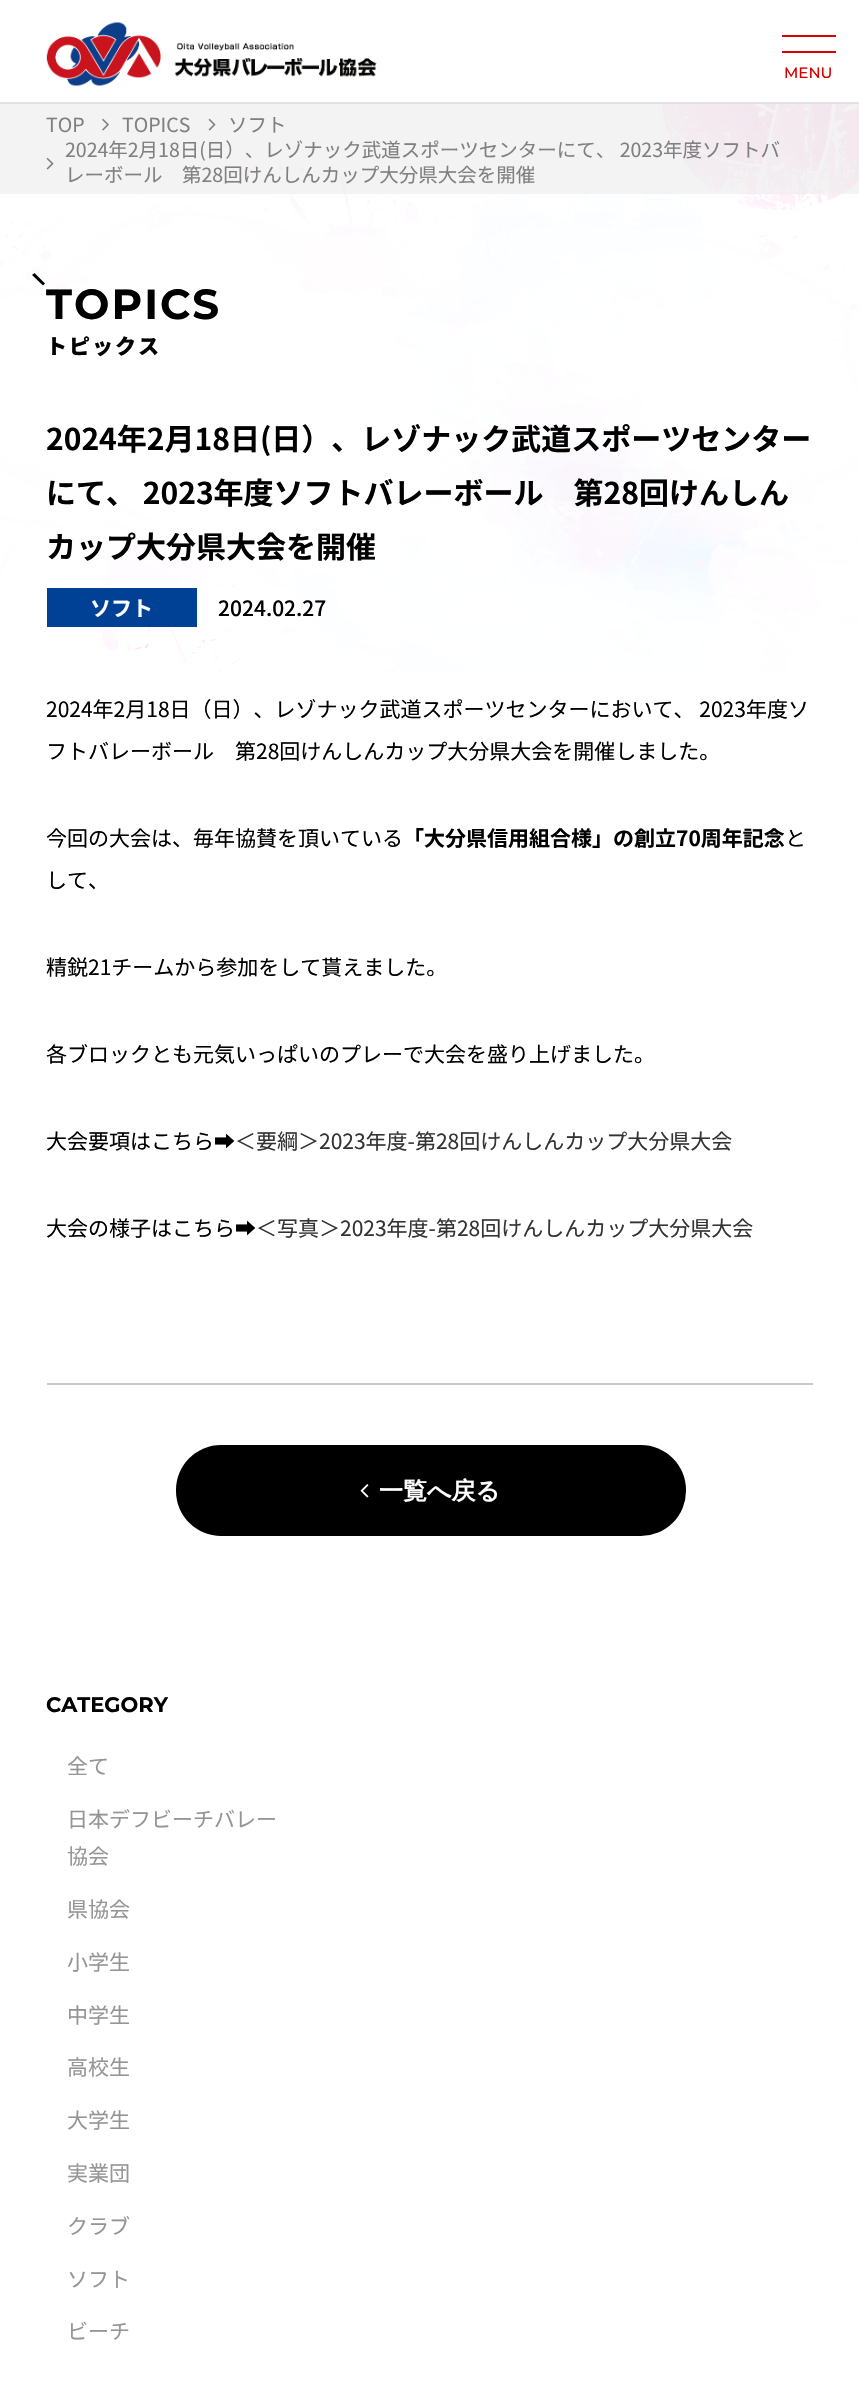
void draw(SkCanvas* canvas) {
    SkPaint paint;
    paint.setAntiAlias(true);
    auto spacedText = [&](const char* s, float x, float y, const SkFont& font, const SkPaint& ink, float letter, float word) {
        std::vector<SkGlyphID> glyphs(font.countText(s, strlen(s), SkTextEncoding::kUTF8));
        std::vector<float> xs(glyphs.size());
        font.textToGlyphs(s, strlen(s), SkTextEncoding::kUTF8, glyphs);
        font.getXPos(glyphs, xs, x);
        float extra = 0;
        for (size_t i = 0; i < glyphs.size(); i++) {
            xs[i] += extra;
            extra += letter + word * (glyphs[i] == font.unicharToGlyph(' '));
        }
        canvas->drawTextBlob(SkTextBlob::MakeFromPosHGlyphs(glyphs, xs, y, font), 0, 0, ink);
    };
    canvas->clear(0xFFFFFFFF);
    canvas->drawImageRect(SkImages::DeferredFromEncodedData(SkData::MakeFromFileName("img1.png")), SkRect::MakeXYWH(46, 22, 331, 64), SkSamplingOptions());
    paint.setColor(0xFFD80000);
    canvas->drawRect(SkRect::MakeXYWH(782, 35, 54, 2), paint);
    canvas->drawRect(SkRect::MakeXYWH(782, 51, 54, 2), paint);
    SkFont font1(fontMgr->matchFamilyStyle("Montserrat", SkFontStyle(500, SkFontStyle::kNormal_Width, SkFontStyle::kUpright_Slant)), 15);
    font1.setSubpixel(true);
    canvas->drawString("MENU", 784, 78, font1, paint);
    canvas->drawImageRect(SkImages::DeferredFromEncodedData(SkData::MakeFromFileName("img2.png")), SkRect::MakeXYWH(0, 104, 859, 568), SkSamplingOptions());
    paint.setColor(0xB3EEEEEE);
    canvas->drawRect(SkRect::MakeXYWH(0, 104, 859, 90), paint);
    paint.setColor(0xFFE2E2E2);
    canvas->drawRect(SkRect::MakeXYWH(0, 102, 859, 2), paint);
    SkFont font2(fontMgr->matchFamilyStyle("Noto Sans JP", SkFontStyle::Normal()), 19.5f);
    font2.setSubpixel(true);
    paint.setColor(0xFF808080);
    canvas->drawString("TOP", 46, 132, font2, paint);
    canvas->drawImageRect(SkImages::DeferredFromEncodedData(SkData::MakeFromFileName("img3.png")), SkRect::MakeXYWH(102, 118, 7, 13), SkSamplingOptions());
    canvas->drawString("TOPICS", 122, 132, font2, paint);
    canvas->drawImageRect(SkImages::DeferredFromEncodedData(SkData::MakeFromFileName("img4.png")), SkRect::MakeXYWH(208, 118, 8, 13), SkSamplingOptions());
    canvas->drawString("ソフト", 228, 132, font2, paint);
    canvas->drawString("2024年2月18日(日）、レゾナック武道スポーツセンターにて、 2023年度ソフトバ", 65, 157, font2, paint);
    canvas->drawImageRect(SkImages::DeferredFromEncodedData(SkData::MakeFromFileName("img4.png")), SkRect::MakeXYWH(46, 157, 8, 13), SkSamplingOptions());
    canvas->drawString("レーボール　第28回けんしんカップ大分県大会を開催", 65, 182, font2, paint);
    paint.setColor(0xFF000000);
    canvas->drawPath(SkPathBuilder().moveTo(34.5f, 273).lineTo(45, 283.5f).lineTo(43, 285.5f).lineTo(32, 275).close().detach(), paint);
    SkFont font3(fontMgr->matchFamilyStyle("Montserrat", SkFontStyle::Bold()), 42);
    font3.setSubpixel(true);
    spacedText("TOPICS", 46, 319, font3, paint, 2, 0);
    SkFont font4(fontMgr->matchFamilyStyle("Noto Sans JP", SkFontStyle(900, SkFontStyle::kNormal_Width, SkFontStyle::kUpright_Slant)), 21);
    font4.setSubpixel(true);
    spacedText("トピックス", 46, 354, font4, paint, 2, 0);
    SkFont font5(fontMgr->matchFamilyStyle("Noto Sans JP", SkFontStyle::Bold()), 30);
    font5.setSubpixel(true);
    canvas->drawString("2024年2月18日(日）、レゾナック武道スポーツセンター", 46, 450, font5, paint);
    canvas->drawString("にて、 2023年度ソフトバレーボール　第28回けんしん", 46, 504, font5, paint);
    canvas->drawString("カップ大分県大会を開催", 46, 558, font5, paint);
    paint.setColor(0xFF004196);
    canvas->drawRect(SkRect::MakeXYWH(47, 588, 150, 39), paint);
    SkFont font6(fontMgr->matchFamilyStyle("Noto Sans JP", SkFontStyle::Bold()), 21);
    font6.setSubpixel(true);
    paint.setColor(0xFFFFFFFF);
    canvas->drawString("ソフト", 90, 616, font6, paint);
    canvas->drawRect(SkRect::MakeXYWH(213, 588, 84, 39), paint);
    SkFont font7(fontMgr->matchFamilyStyle("Noto Sans JP", SkFontStyle(500, SkFontStyle::kNormal_Width, SkFontStyle::kUpright_Slant)), 21);
    font7.setSubpixel(true);
    paint.setColor(0xFF000000);
    canvas->drawString("2024.02.27", 218, 616, font7, paint);
    paint.setColor(0xFFC8C8C8);
    canvas->drawRect(SkRect::MakeXYWH(47, 1383, 766, 2), paint);
    SkFont font8(fontMgr->matchFamilyStyle("Noto Sans JP", SkFontStyle::Normal()), 21);
    font8.setSubpixel(true);
    paint.setColor(0xFF000000);
    canvas->drawString("2024年2月18日（日）、レゾナック武道スポーツセンターにおいて、 2023年度ソ", 46, 717, font8, paint);
    canvas->drawString("フトバレーボール　第28回けんしんカップ大分県大会を開催しました。", 46, 759, font8, paint);
    canvas->drawString("今回の大会は、毎年協賛を頂いている", 46, 846, font8, paint);
    canvas->drawString("「大分県信用組合様」の創立70周年記念", 403, 846, font6, paint);
    canvas->drawString("と", 785, 846, font8, paint);
    canvas->drawString("して、", 46, 888, font8, paint);
    canvas->drawString("精鋭21チームから参加をして貰えました。", 46, 975, font8, paint);
    canvas->drawString("各ブロックとも元気いっぱいのプレーで大会を盛り上げました。", 46, 1062, font8, paint);
    canvas->drawString("大会要項はこちら➡", 46, 1149, font8, paint);
    paint.setColor(0xFF333333);
    canvas->drawString("＜要綱＞2023年度-第28回けんしんカップ大分県大会", 235, 1149, font8, paint);
    paint.setColor(0xFF000000);
    canvas->drawString("大会の様子はこちら➡", 46, 1236, font8, paint);
    paint.setColor(0xFF333333);
    canvas->drawString("＜写真＞2023年度-第28回けんしんカップ大分県大会", 256, 1236, font8, paint);
    paint.setColor(0xFF000000);
    canvas->drawRoundRect(SkRect::MakeXYWH(176, 1445, 510, 91), 45, 45, paint);
    canvas->drawImageRect(SkImages::DeferredFromEncodedData(SkData::MakeFromFileName("img5.png")), SkRect::MakeXYWH(360, 1484, 9, 14), SkSamplingOptions());
    SkFont font9(fontMgr->matchFamilyStyle("WenQuanYi Zen Hei", SkFontStyle::Bold()), 24);
    font9.setSubpixel(true);
    paint.setColor(0xFFFFFFFF);
    canvas->drawString("一覧へ戻る", 379, 1499, font9, paint);
    SkFont font10(fontMgr->matchFamilyStyle("Montserrat", SkFontStyle::Bold()), 21);
    font10.setSubpixel(true);
    paint.setColor(0xFF000000);
    canvas->drawString("CATEGORY", 46, 1712, font10, paint);
    paint.setColor(0xFF959595);
    canvas->drawString("全て", 67, 1774, font8, paint);
    canvas->drawString("日本デフビーチバレー", 67, 1827, font8, paint);
    canvas->drawString("協会", 67, 1864, font8, paint);
    canvas->drawString("県協会", 67, 1917, font8, paint);
    canvas->drawString("小学生", 67, 1970, font8, paint);
    canvas->drawString("中学生", 67, 2023, font8, paint);
    canvas->drawString("高校生", 67, 2075, font8, paint);
    canvas->drawString("大学生", 67, 2128, font8, paint);
    canvas->drawString("実業団", 67, 2181, font8, paint);
    canvas->drawString("クラブ", 67, 2234, font8, paint);
    canvas->drawString("ソフト", 67, 2287, font8, paint);
    canvas->drawString("ビーチ", 67, 2339, font8, paint);
}
